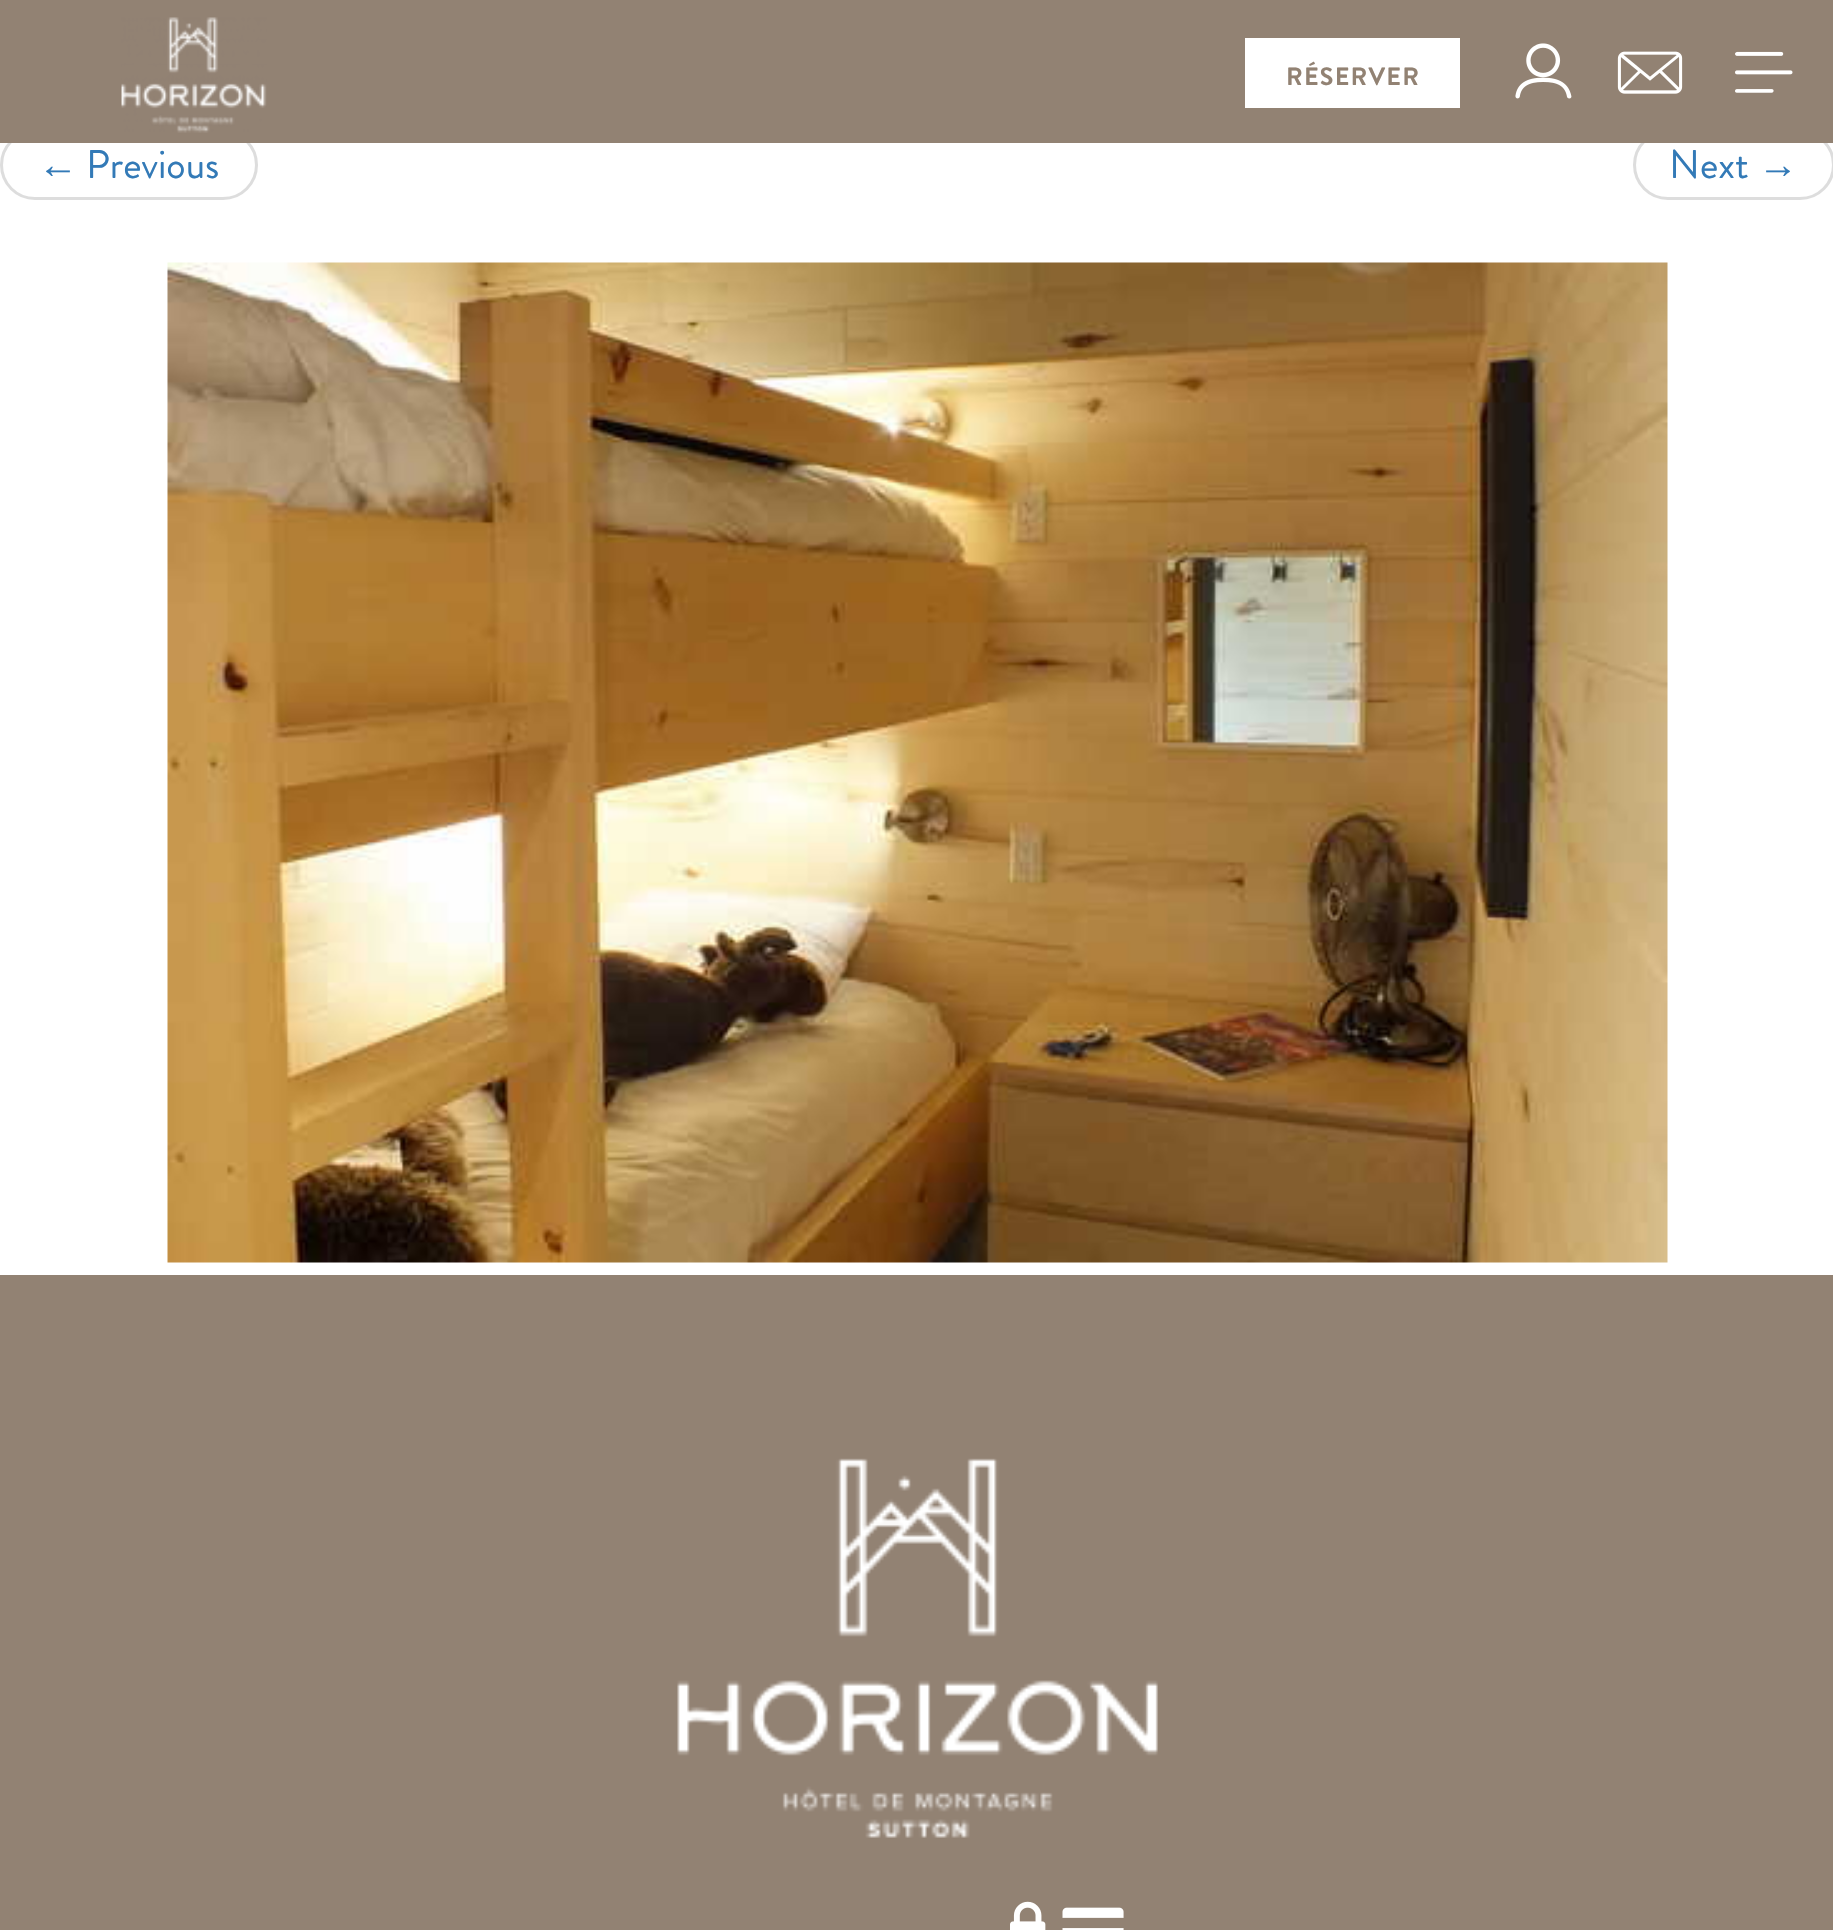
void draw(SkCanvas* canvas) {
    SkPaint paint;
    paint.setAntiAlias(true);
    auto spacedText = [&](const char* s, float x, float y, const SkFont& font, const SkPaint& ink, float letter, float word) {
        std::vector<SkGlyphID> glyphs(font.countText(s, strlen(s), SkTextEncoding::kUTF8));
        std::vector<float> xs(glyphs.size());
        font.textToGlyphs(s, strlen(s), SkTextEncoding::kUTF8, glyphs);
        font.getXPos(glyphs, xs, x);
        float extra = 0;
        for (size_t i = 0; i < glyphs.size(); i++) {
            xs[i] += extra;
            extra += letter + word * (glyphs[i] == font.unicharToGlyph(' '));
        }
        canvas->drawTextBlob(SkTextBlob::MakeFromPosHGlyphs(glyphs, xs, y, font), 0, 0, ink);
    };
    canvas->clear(0xFFFFFFFF);
    paint.setStyle(SkPaint::kStroke_Style);
    paint.setStrokeWidth(3);
    paint.setColor(0xFFDDDDDD);
    canvas->drawRoundRect(SkRect::MakeXYWH(1.5f, 131.5f, 255, 67), 33.5f, 33.5f, paint);
    canvas->drawRoundRect(SkRect::MakeXYWH(1634.5f, 131.5f, 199, 67), 33.5f, 33.5f, paint);
    paint.setStyle(SkPaint::kFill_Style);
    paint.setColor(0xFF928273);
    canvas->drawRect(SkRect::MakeXYWH(0, 0, 1833, 143), paint);
    canvas->drawImageRect(SkImages::DeferredFromEncodedData(SkData::MakeFromFileName("img1.png")), SkRect::MakeXYWH(121, 17, 146, 116), SkSamplingOptions());
    paint.setColor(0xFFFFFFFF);
    canvas->drawRect(SkRect::MakeXYWH(1245, 38, 215, 70), paint);
    SkFont font1(fontMgr->matchFamilyStyle("Brandon Grotesque", SkFontStyle::Bold()), 25);
    font1.setSubpixel(true);
    paint.setColor(0xFF928273);
    spacedText("RÉSERVER", 1286, 85, font1, paint, 1.25f, 0);
    canvas->drawImageRect(SkImages::DeferredFromEncodedData(SkData::MakeFromFileName("img2.png")), SkRect::MakeXYWH(1515, 43, 57, 56), SkSamplingOptions());
    canvas->drawImageRect(SkImages::DeferredFromEncodedData(SkData::MakeFromFileName("img3.png")), SkRect::MakeXYWH(1617, 51, 66, 43), SkSamplingOptions());
    canvas->drawImageRect(SkImages::DeferredFromEncodedData(SkData::MakeFromFileName("img4.png")), SkRect::MakeXYWH(1735, 51, 58, 42), SkSamplingOptions());
    SkFont font2(fontMgr->matchFamilyStyle("Liberation Serif", SkFontStyle::Normal()), 40);
    font2.setSubpixel(true);
    paint.setColor(0xFF337AB7);
    canvas->drawString("←", 38, 178, font2, paint);
    SkFont font3(fontMgr->matchFamilyStyle("Brandon Grotesque", SkFontStyle::Normal()), 40);
    font3.setSubpixel(true);
    canvas->drawString("Previous", 86, 178, font3, paint);
    canvas->drawString("Next", 1669, 178, font3, paint);
    canvas->drawString("→", 1758, 178, font2, paint);
    canvas->drawImageRect(SkImages::DeferredFromEncodedData(SkData::MakeFromFileName("img5.png")), SkRect::MakeXYWH(167, 262, 1501, 1001), SkSamplingOptions());
    paint.setColor(0xFF928273);
    canvas->drawRect(SkRect::MakeXYWH(0, 1275, 1833, 655), paint);
    canvas->drawImageRect(SkImages::DeferredFromEncodedData(SkData::MakeFromFileName("img6.png")), SkRect::MakeXYWH(677, 1458, 481, 380), SkSamplingOptions());
    canvas->drawImageRect(SkImages::DeferredFromEncodedData(SkData::MakeFromFileName("img7.png")), SkRect::MakeXYWH(1010, 1901, 36, 29), SkSamplingOptions());
    canvas->drawImageRect(SkImages::DeferredFromEncodedData(SkData::MakeFromFileName("img8.png")), SkRect::MakeXYWH(1062, 1907, 62, 23), SkSamplingOptions());
}
